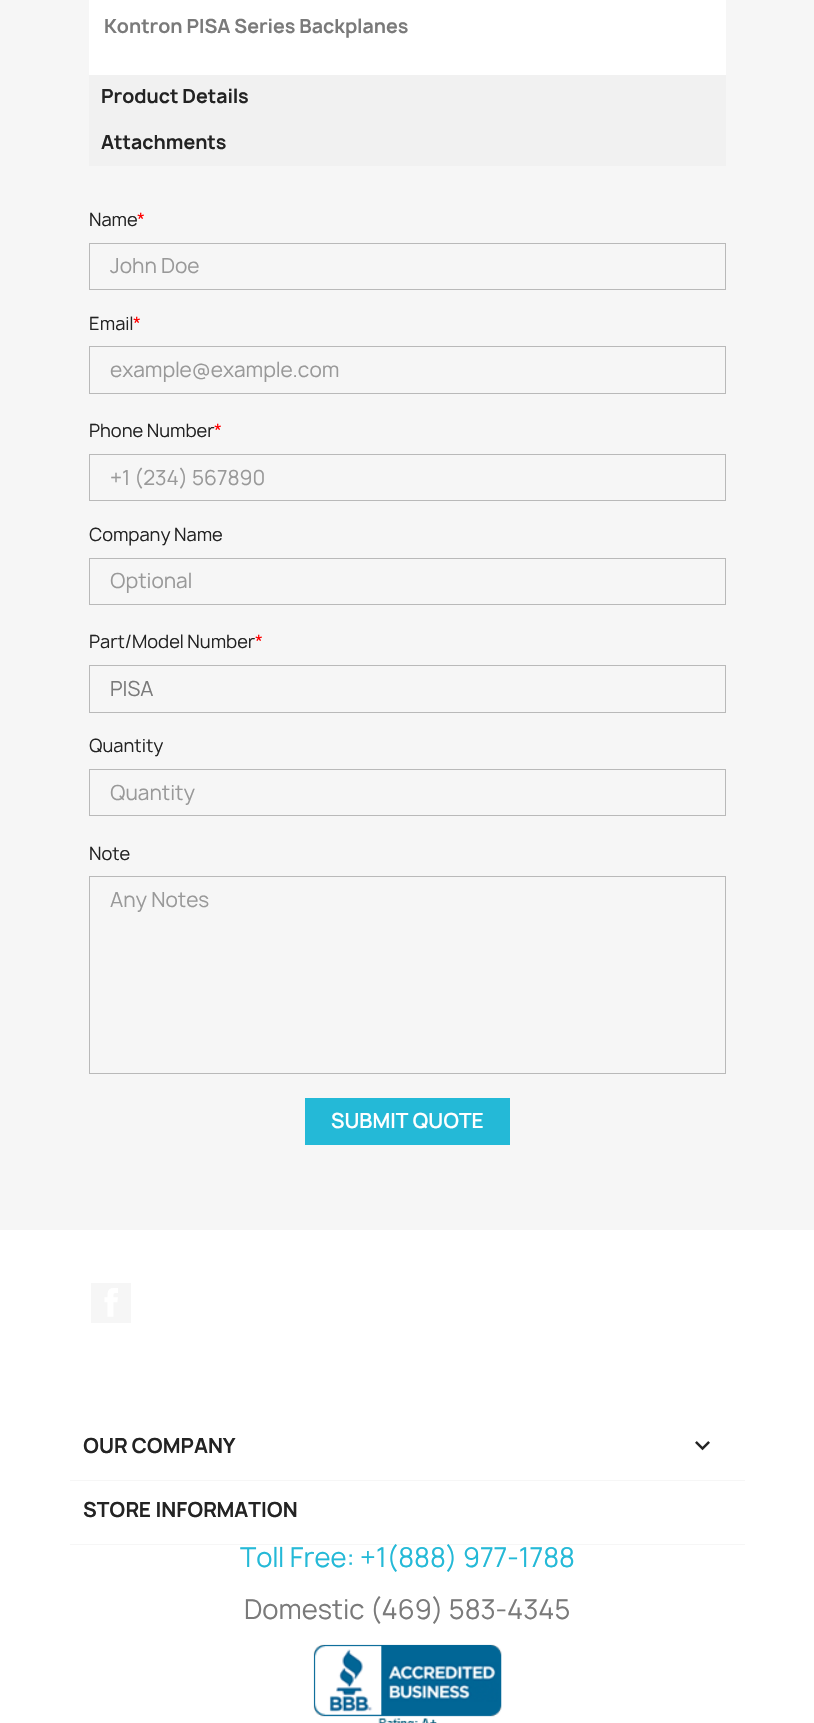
void draw(SkCanvas* canvas) {
    SkPaint paint;
    paint.setAntiAlias(true);
    canvas->clear(0xFFFFFFFF);
    paint.setColor(0xFFF6F6F6);
    canvas->drawRect(SkRect::MakeXYWH(0, 0, 814, 1230), paint);
    paint.setColor(0xFFFFFFFF);
    canvas->drawRect(SkRect::MakeXYWH(89, 0, 637, 75), paint);
    SkFont font1(fontMgr->matchFamilyStyle("Manrope", SkFontStyle::Bold()), 18.75f);
    font1.setSubpixel(true);
    paint.setColor(0xFF7A7A7A);
    canvas->drawString("Kontron PISA Series Backplanes", 104, 33, font1, paint);
    paint.setColor(0xFFF1F1F1);
    canvas->drawRect(SkRect::MakeXYWH(89, 75, 637, 91), paint);
    paint.setColor(0xFF232323);
    canvas->drawString("Product Details", 101, 103, font1, paint);
    canvas->drawString("Attachments", 101, 149, font1, paint);
    SkFont font2(fontMgr->matchFamilyStyle("Manrope", SkFontStyle::Normal()), 17.5f);
    font2.setSubpixel(true);
    canvas->drawString("Name", 89, 226, font2, paint);
    paint.setColor(0xFFFF0000);
    canvas->drawString("*", 137, 226, font2, paint);
    paint.setStyle(SkPaint::kStroke_Style);
    paint.setStrokeWidth(1);
    paint.setColor(0xFFB9B9B9);
    canvas->drawRect(SkRect::MakeXYWH(89.5f, 243.5f, 636, 46), paint);
    SkFont font3(fontMgr->matchFamilyStyle("Manrope", SkFontStyle::Normal()), 20);
    font3.setSubpixel(true);
    paint.setStyle(SkPaint::kFill_Style);
    paint.setColor(0xFF999999);
    canvas->drawString("John Doe", 110, 273, font3, paint);
    paint.setColor(0xFF232323);
    canvas->drawString("Email", 89, 330, font2, paint);
    paint.setColor(0xFFFF0000);
    canvas->drawString("*", 133, 330, font2, paint);
    paint.setStyle(SkPaint::kStroke_Style);
    paint.setColor(0xFFB9B9B9);
    canvas->drawRect(SkRect::MakeXYWH(89.5f, 346.5f, 636, 47), paint);
    paint.setStyle(SkPaint::kFill_Style);
    paint.setColor(0xFF999999);
    canvas->drawString("example@example.com", 110, 377, font3, paint);
    paint.setColor(0xFF232323);
    canvas->drawString("Phone Number", 89, 437, font2, paint);
    paint.setColor(0xFFFF0000);
    canvas->drawString("*", 214, 437, font2, paint);
    paint.setStyle(SkPaint::kStroke_Style);
    paint.setColor(0xFFB9B9B9);
    canvas->drawRect(SkRect::MakeXYWH(89.5f, 454.5f, 636, 46), paint);
    paint.setStyle(SkPaint::kFill_Style);
    paint.setColor(0xFF999999);
    canvas->drawString("+1 (234) 567890", 110, 485, font3, paint);
    paint.setColor(0xFF232323);
    canvas->drawString("Company Name", 89, 541, font2, paint);
    paint.setStyle(SkPaint::kStroke_Style);
    paint.setColor(0xFFB9B9B9);
    canvas->drawRect(SkRect::MakeXYWH(89.5f, 558.5f, 636, 46), paint);
    paint.setStyle(SkPaint::kFill_Style);
    paint.setColor(0xFF999999);
    canvas->drawString("Optional", 110, 588, font3, paint);
    paint.setColor(0xFF232323);
    canvas->drawString("Part/Model Number", 89, 648, font2, paint);
    paint.setColor(0xFFFF0000);
    canvas->drawString("*", 255, 648, font2, paint);
    paint.setStyle(SkPaint::kStroke_Style);
    paint.setColor(0xFFB9B9B9);
    canvas->drawRect(SkRect::MakeXYWH(89.5f, 665.5f, 636, 47), paint);
    paint.setStyle(SkPaint::kFill_Style);
    paint.setColor(0xFF7A7A7A);
    canvas->drawString("PISA", 110, 696, font3, paint);
    paint.setColor(0xFF232323);
    canvas->drawString("Quantity", 89, 752, font2, paint);
    paint.setStyle(SkPaint::kStroke_Style);
    paint.setColor(0xFFB9B9B9);
    canvas->drawRect(SkRect::MakeXYWH(89.5f, 769.5f, 636, 46), paint);
    paint.setStyle(SkPaint::kFill_Style);
    paint.setColor(0xFF999999);
    canvas->drawString("Quantity", 110, 800, font3, paint);
    paint.setColor(0xFF232323);
    canvas->drawString("Note", 89, 860, font2, paint);
    paint.setStyle(SkPaint::kStroke_Style);
    paint.setColor(0xFFB9B9B9);
    canvas->drawRect(SkRect::MakeXYWH(89.5f, 876.5f, 636, 197), paint);
    paint.setStyle(SkPaint::kFill_Style);
    paint.setColor(0xFF999999);
    canvas->drawString("Any Notes", 110, 907, font3, paint);
    paint.setColor(0xFF24B9D7);
    canvas->drawRect(SkRect::MakeXYWH(305, 1098, 205, 47), paint);
    SkFont font4(fontMgr->matchFamilyStyle("Manrope", SkFontStyle(600, SkFontStyle::kNormal_Width, SkFontStyle::kUpright_Slant)), 20);
    font4.setSubpixel(true);
    paint.setColor(0xFFFFFFFF);
    canvas->drawString("SUBMIT QUOTE", 331, 1128, font4, paint);
    paint.setColor(0xFFF6F6F6);
    canvas->drawRect(SkRect::MakeXYWH(91, 1283, 40, 40), paint);
    canvas->drawImageRect(SkImages::DeferredFromEncodedData(SkData::MakeFromFileName("img1.png")), SkRect::MakeXYWH(104, 1288, 14, 29), SkSamplingOptions());
    canvas->drawRect(SkRect::MakeXYWH(70, 1480, 675, 1), paint);
    SkFont font5(fontMgr->matchFamilyStyle("Manrope", SkFontStyle::Bold()), 20);
    font5.setSubpixel(true);
    paint.setColor(0xFF232323);
    canvas->drawString("OUR COMPANY", 83, 1453, font5, paint);
    canvas->drawImageRect(SkImages::DeferredFromEncodedData(SkData::MakeFromFileName("img2.png")), SkRect::MakeXYWH(695, 1441, 15, 10), SkSamplingOptions());
    paint.setColor(0xFFF6F6F6);
    canvas->drawRect(SkRect::MakeXYWH(70, 1544, 675, 1), paint);
    paint.setColor(0xFF232323);
    canvas->drawString("STORE INFORMATION", 83, 1517, font5, paint);
    SkFont font6(fontMgr->matchFamilyStyle("Manrope", SkFontStyle::Normal()), 26.25f);
    font6.setSubpixel(true);
    paint.setColor(0xFF24B9D7);
    canvas->drawString("Toll Free: +1(888) 977-1788", 240, 1567, font6, paint);
    paint.setColor(0xFF7A7A7A);
    canvas->drawString("Domestic (469) 583-4345", 244, 1619, font6, paint);
    canvas->drawImageRect(SkImages::DeferredFromEncodedData(SkData::MakeFromFileName("img3.png")), SkRect::MakeXYWH(313, 1644, 189, 79), SkSamplingOptions());
}
